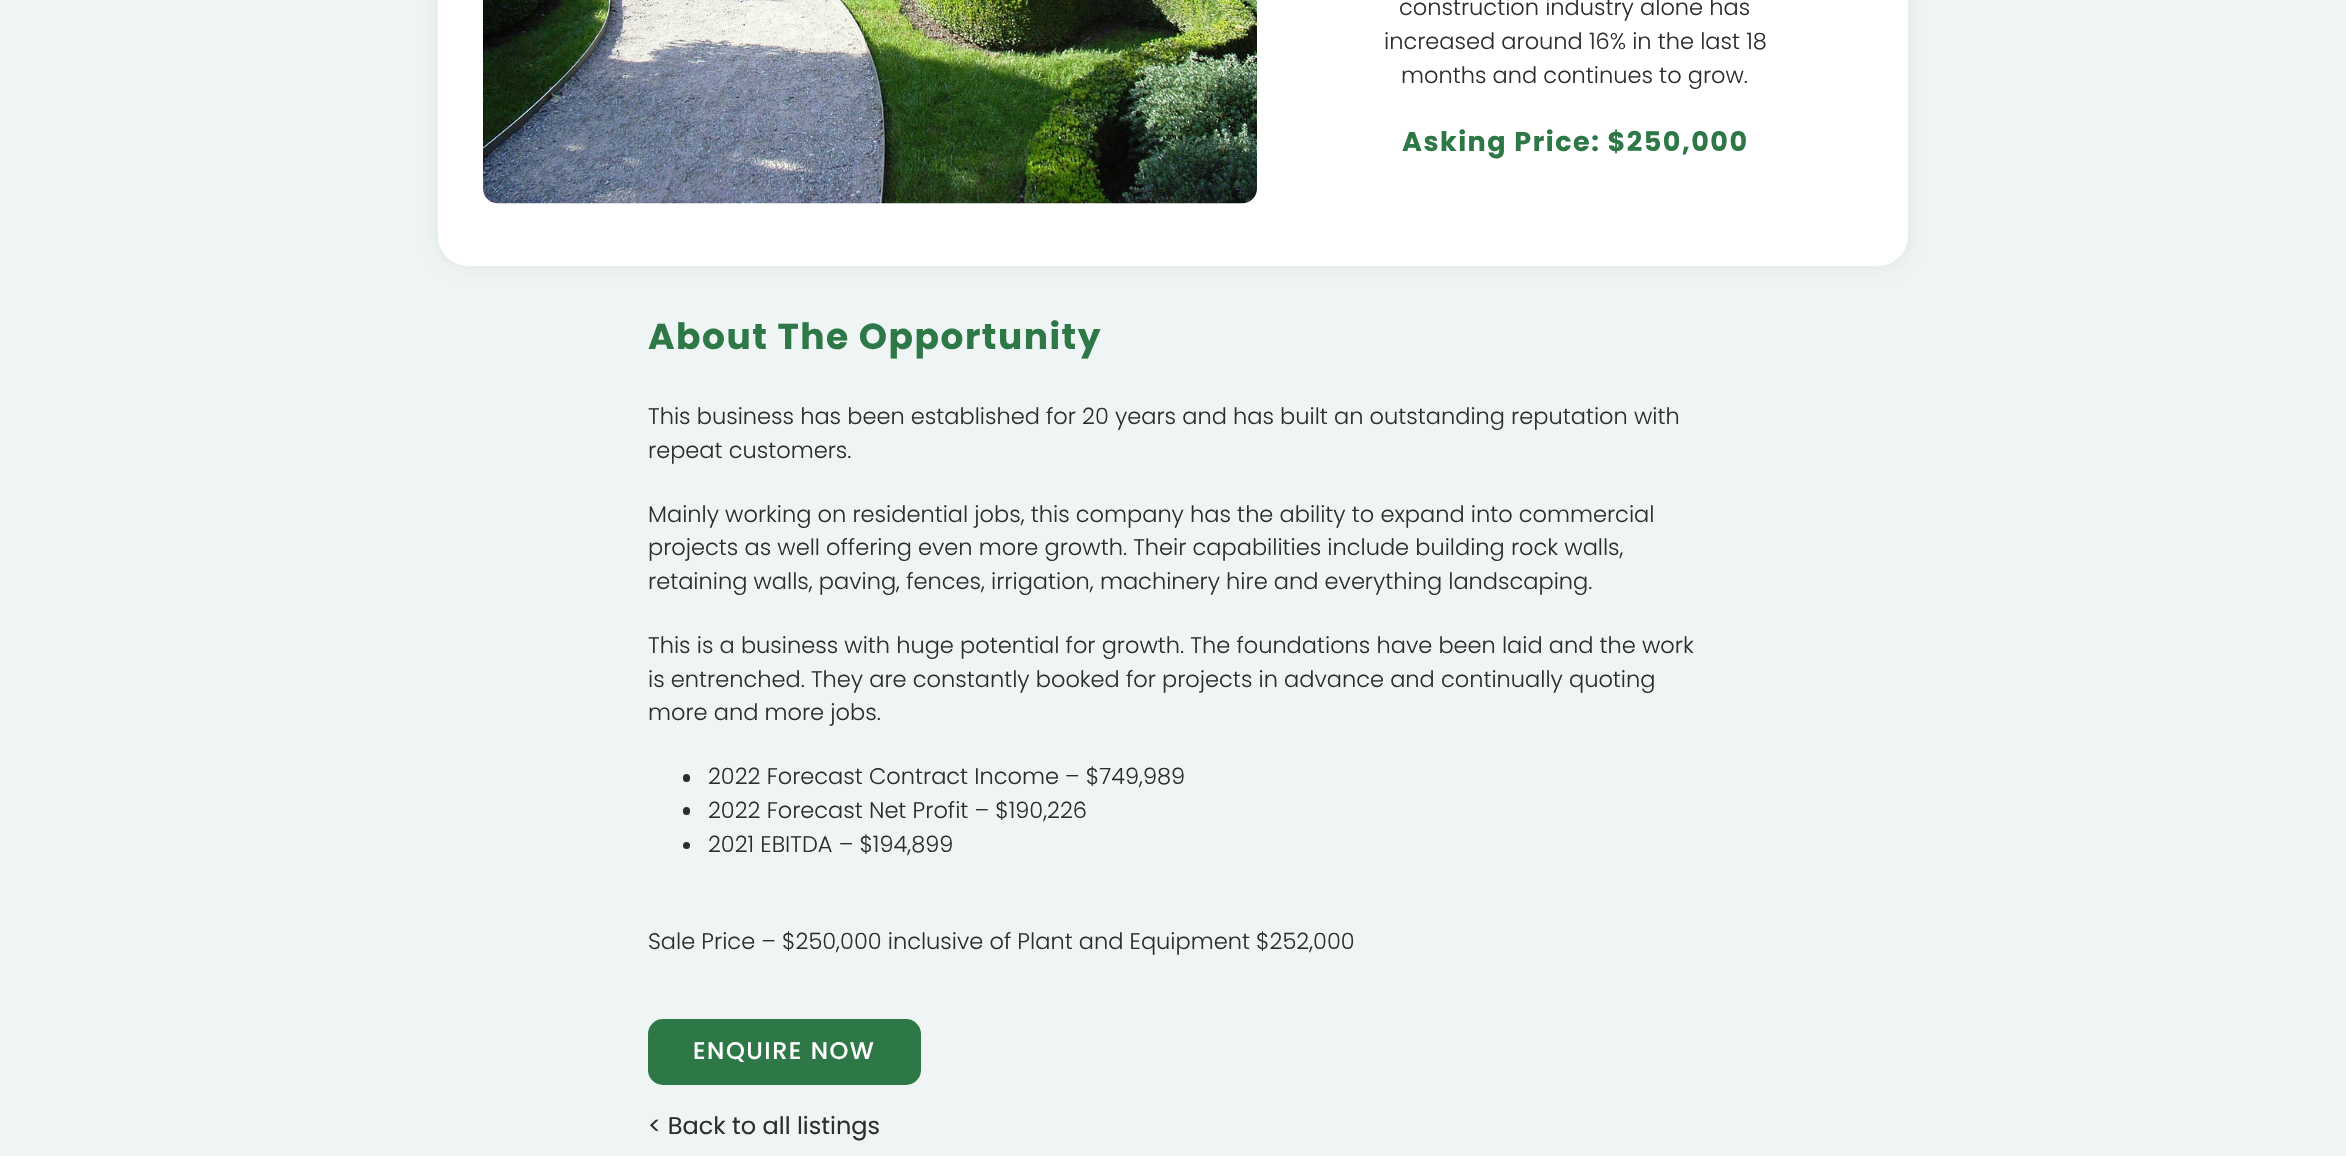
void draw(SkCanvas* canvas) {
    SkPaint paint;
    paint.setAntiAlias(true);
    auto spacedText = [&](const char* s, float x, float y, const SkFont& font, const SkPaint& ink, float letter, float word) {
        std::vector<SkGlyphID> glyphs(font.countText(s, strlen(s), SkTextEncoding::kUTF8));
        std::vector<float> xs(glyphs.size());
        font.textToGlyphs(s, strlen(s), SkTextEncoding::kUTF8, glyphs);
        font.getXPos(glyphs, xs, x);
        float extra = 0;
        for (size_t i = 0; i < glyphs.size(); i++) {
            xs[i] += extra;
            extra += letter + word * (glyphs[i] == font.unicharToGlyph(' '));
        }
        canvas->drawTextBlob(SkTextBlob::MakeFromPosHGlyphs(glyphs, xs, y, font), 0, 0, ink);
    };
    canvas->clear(0xFFEFF5F4);
    paint.setColor(0x12000000);
    paint.setMaskFilter(SkMaskFilter::MakeBlur(kNormal_SkBlurStyle, 7.5f));
    canvas->drawRoundRect(SkRect::MakeXYWH(438, -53, 1470, 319), 30, 30, paint);
    paint.setMaskFilter(nullptr);
    paint.setColor(0xFFFFFFFF);
    canvas->drawRoundRect(SkRect::MakeXYWH(438, -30, 1470, 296), 30, 30, paint);
    canvas->drawImageRect(SkImages::DeferredFromEncodedData(SkData::MakeFromFileName("img1.png")), SkRect::MakeXYWH(483, 0, 774, 204), SkSamplingOptions());
    SkFont font1(fontMgr->matchFamilyStyle("Poppins", SkFontStyle(300, SkFontStyle::kNormal_Width, SkFontStyle::kUpright_Slant)), 22.5f);
    font1.setSubpixel(true);
    paint.setColor(0xFF2E2E2E);
    canvas->drawString("construction industry alone has", 1399, 15, font1, paint);
    canvas->drawString("increased around 16% in the last 18", 1384, 49, font1, paint);
    canvas->drawString("months and continues to grow.", 1401, 83, font1, paint);
    SkFont font2(fontMgr->matchFamilyStyle("Poppins", SkFontStyle::Bold()), 27);
    font2.setSubpixel(true);
    paint.setColor(0xFF2E7848);
    spacedText("Asking Price: $250,000", 1402, 151, font2, paint, 1.5f, 0);
    SkFont font3(fontMgr->matchFamilyStyle("Poppins", SkFontStyle::Bold()), 36);
    font3.setSubpixel(true);
    spacedText("About The Opportunity", 648, 349, font3, paint, 1.5f, 0);
    paint.setColor(0xFF2E2E2E);
    canvas->drawString("This business has been established for 20 years and has built an outstanding reputation with", 648, 424, font1, paint);
    canvas->drawString("repeat customers.", 648, 458, font1, paint);
    canvas->drawString("Mainly working on residential jobs, this company has the ability to expand into commercial", 648, 522, font1, paint);
    canvas->drawString("projects as well offering even more growth. Their capabilities include building rock walls,", 648, 555, font1, paint);
    canvas->drawString("retaining walls, paving, fences, irrigation, machinery hire and everything landscaping.", 648, 589, font1, paint);
    canvas->drawString("This is a business with huge potential for growth. The foundations have been laid and the work", 648, 653, font1, paint);
    canvas->drawString("is entrenched. They are constantly booked for projects in advance and continually quoting", 648, 687, font1, paint);
    canvas->drawString("more and more jobs.", 648, 720, font1, paint);
    canvas->drawRoundRect(SkRect::MakeXYWH(683, 774, 7, 8), 3.5f, 3.5f, paint);
    canvas->drawString("2022 Forecast Contract Income – $749,989", 708, 784, font1, paint);
    canvas->drawRoundRect(SkRect::MakeXYWH(683, 807, 7, 8), 3.5f, 3.5f, paint);
    canvas->drawString("2022 Forecast Net Profit – $190,226", 708, 818, font1, paint);
    canvas->drawCircle(686.5f, 845.5f, 3.5f, paint);
    canvas->drawString("2021 EBITDA – $194,899", 708, 852, font1, paint);
    canvas->drawString("Sale Price – $250,000 inclusive of Plant and Equipment $252,000", 648, 949, font1, paint);
    paint.setColor(0xFF2E7848);
    canvas->drawRoundRect(SkRect::MakeXYWH(648, 1019, 273, 66), 15, 15, paint);
    SkFont font4(fontMgr->matchFamilyStyle("Poppins", SkFontStyle(500, SkFontStyle::kNormal_Width, SkFontStyle::kUpright_Slant)), 24);
    font4.setSubpixel(true);
    paint.setColor(0xFFFFFFFF);
    spacedText("ENQUIRE NOW", 693, 1059, font4, paint, 1.5f, 0);
    SkFont font5(fontMgr->matchFamilyStyle("Poppins", SkFontStyle::Normal()), 24);
    font5.setSubpixel(true);
    paint.setColor(0xFF2E2E2E);
    canvas->drawString("< Back to all listings", 648, 1134, font5, paint);
}
